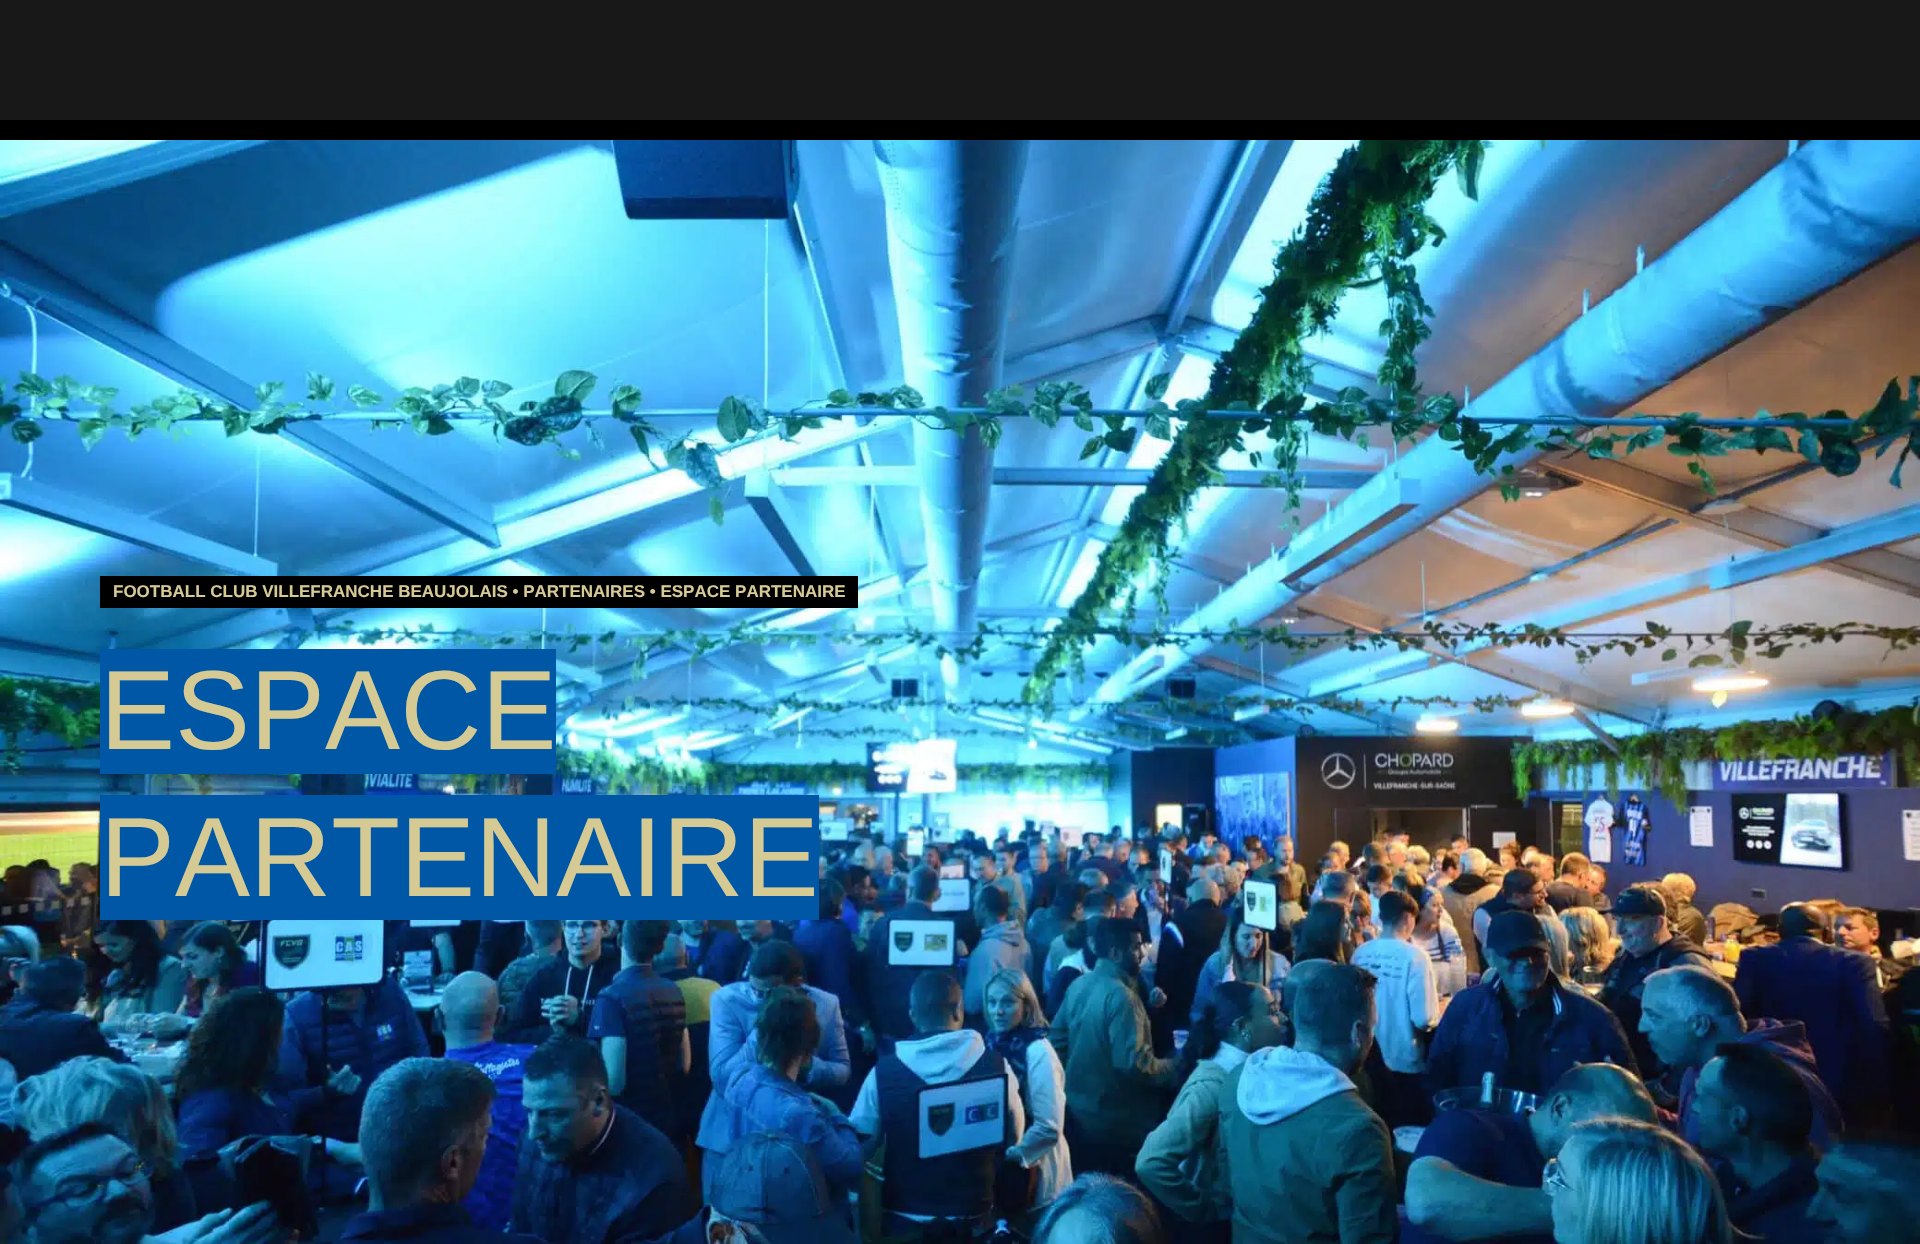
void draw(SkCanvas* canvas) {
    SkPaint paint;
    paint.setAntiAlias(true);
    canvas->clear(0xFF000000);
    paint.setColor(0xFF181818);
    canvas->drawRect(SkRect::MakeXYWH(0, 0, 1920, 120), paint);
    canvas->drawImageRect(SkImages::DeferredFromEncodedData(SkData::MakeFromFileName("img1.png")), SkRect::MakeXYWH(0, 140, 1920, 1104), SkSamplingOptions());
    paint.setColor(0xFF000000);
    canvas->drawRect(SkRect::MakeXYWH(100, 576, 758, 32), paint);
    SkFont font1(fontMgr->matchFamilyStyle("Liberation Sans", SkFontStyle::Bold()), 17);
    font1.setSubpixel(true);
    paint.setColor(0xFFD6CA94);
    canvas->drawString("FOOTBALL CLUB VILLEFRANCHE BEAUJOLAIS • PARTENAIRES • ESPACE PARTENAIRE", 113, 597, font1, paint);
    paint.setColor(0xFF0057A5);
    canvas->drawRect(SkRect::MakeXYWH(100, 649, 456, 125), paint);
    SkFont font2(fontMgr->matchFamilyStyle("Liberation Sans", SkFontStyle::Normal()), 112.5f);
    font2.setSubpixel(true);
    paint.setColor(0xFFD6CA94);
    canvas->drawString("ESPACE", 100, 749, font2, paint);
    paint.setColor(0xFF0057A5);
    canvas->drawRect(SkRect::MakeXYWH(100, 795, 719, 125), paint);
    paint.setColor(0xFFD6CA94);
    canvas->drawString("PARTENAIRE", 100, 896, font2, paint);
}
